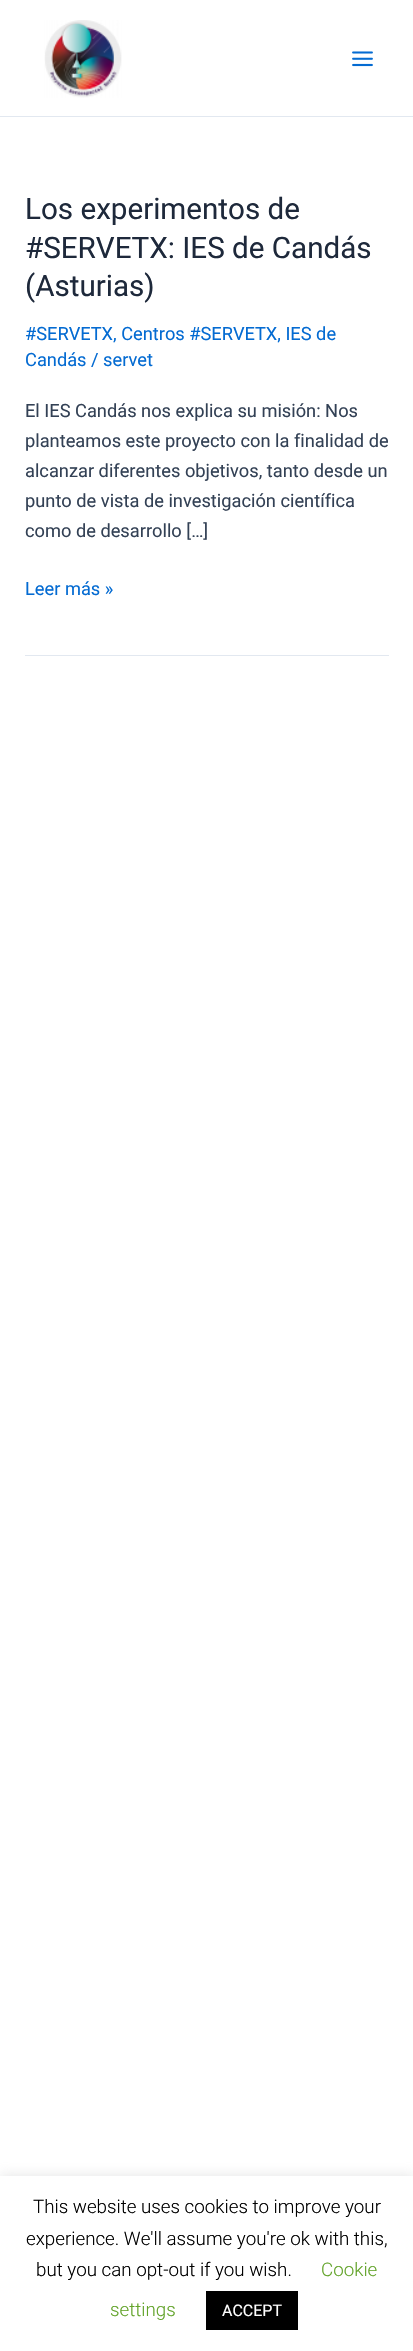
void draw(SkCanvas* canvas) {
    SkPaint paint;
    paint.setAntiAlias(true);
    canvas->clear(0xFFFFFFFF);
    paint.setColor(0xFFE2E8F0);
    canvas->drawRect(SkRect::MakeXYWH(0, 116, 413, 1), paint);
    canvas->drawImageRect(SkImages::DeferredFromEncodedData(SkData::MakeFromFileName("img1.png")), SkRect::MakeXYWH(44, 20, 78, 78), SkSamplingOptions());
    canvas->drawImageRect(SkImages::DeferredFromEncodedData(SkData::MakeFromFileName("img2.png")), SkRect::MakeXYWH(352, 51, 21, 16), SkSamplingOptions());
    canvas->drawRect(SkRect::MakeXYWH(25, 655, 364, 1), paint);
    SkFont font1(fontMgr->matchFamilyStyle("Roboto", SkFontStyle::Normal()), 29.6f);
    font1.setSubpixel(true);
    paint.setColor(0xFF1E293B);
    canvas->drawString("Los experimentos de", 25, 219, font1, paint);
    canvas->drawString("#SERVETX: IES de Candás", 25, 258, font1, paint);
    canvas->drawString("(Asturias)", 25, 296, font1, paint);
    SkFont font2(fontMgr->matchFamilyStyle("Roboto", SkFontStyle::Normal()), 18.25f);
    font2.setSubpixel(true);
    paint.setColor(0xFF046BD2);
    canvas->drawString("#SERVETX, Centros #SERVETX, IES de", 25, 340, font2, paint);
    canvas->drawString("Candás / servet", 25, 366, font2, paint);
    paint.setColor(0xFF334155);
    canvas->drawString("El IES Candás nos explica su misión: Nos", 25, 417, font2, paint);
    canvas->drawString("planteamos este proyecto con la finalidad de", 25, 447, font2, paint);
    canvas->drawString("alcanzar diferentes objetivos, tanto desde un", 25, 477, font2, paint);
    canvas->drawString("punto de vista de investigación científica", 25, 507, font2, paint);
    canvas->drawString("como de desarrollo […]", 25, 537, font2, paint);
    paint.setColor(0xFF046BD2);
    canvas->drawString("Leer más »", 25, 595, font2, paint);
    paint.setColor(0x4DACABAB);
    paint.setMaskFilter(SkMaskFilter::MakeBlur(kNormal_SkBlurStyle, 6));
    canvas->drawRect(SkRect::MakeXYWH(0, 2175, 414, 175), paint);
    paint.setMaskFilter(nullptr);
    paint.setColor(0xFFFFFFFF);
    canvas->drawRect(SkRect::MakeXYWH(0, 2176, 413, 175), paint);
    SkFont font3(fontMgr->matchFamilyStyle("Roboto", SkFontStyle(300, SkFontStyle::kNormal_Width, SkFontStyle::kUpright_Slant)), 18.75f);
    font3.setSubpixel(true);
    paint.setColor(0xFF000000);
    canvas->drawString("This website uses cookies to improve your", 33, 2213, font3, paint);
    canvas->drawString("experience. We'll assume you're ok with this,", 26, 2245, font3, paint);
    canvas->drawString("but you can opt-out if you wish.", 36, 2276, font3, paint);
    paint.setColor(0xFF62A329);
    canvas->drawString("Cookie", 321, 2276, font3, paint);
    canvas->drawString("settings", 110, 2316, font3, paint);
    paint.setColor(0xFF000000);
    canvas->drawRect(SkRect::MakeXYWH(206, 2291, 92, 39), paint);
    SkFont font4(fontMgr->matchFamilyStyle("Roboto", SkFontStyle::Normal()), 16);
    font4.setSubpixel(true);
    paint.setColor(0xFFFFFFFF);
    canvas->drawString("ACCEPT", 222, 2316, font4, paint);
}
